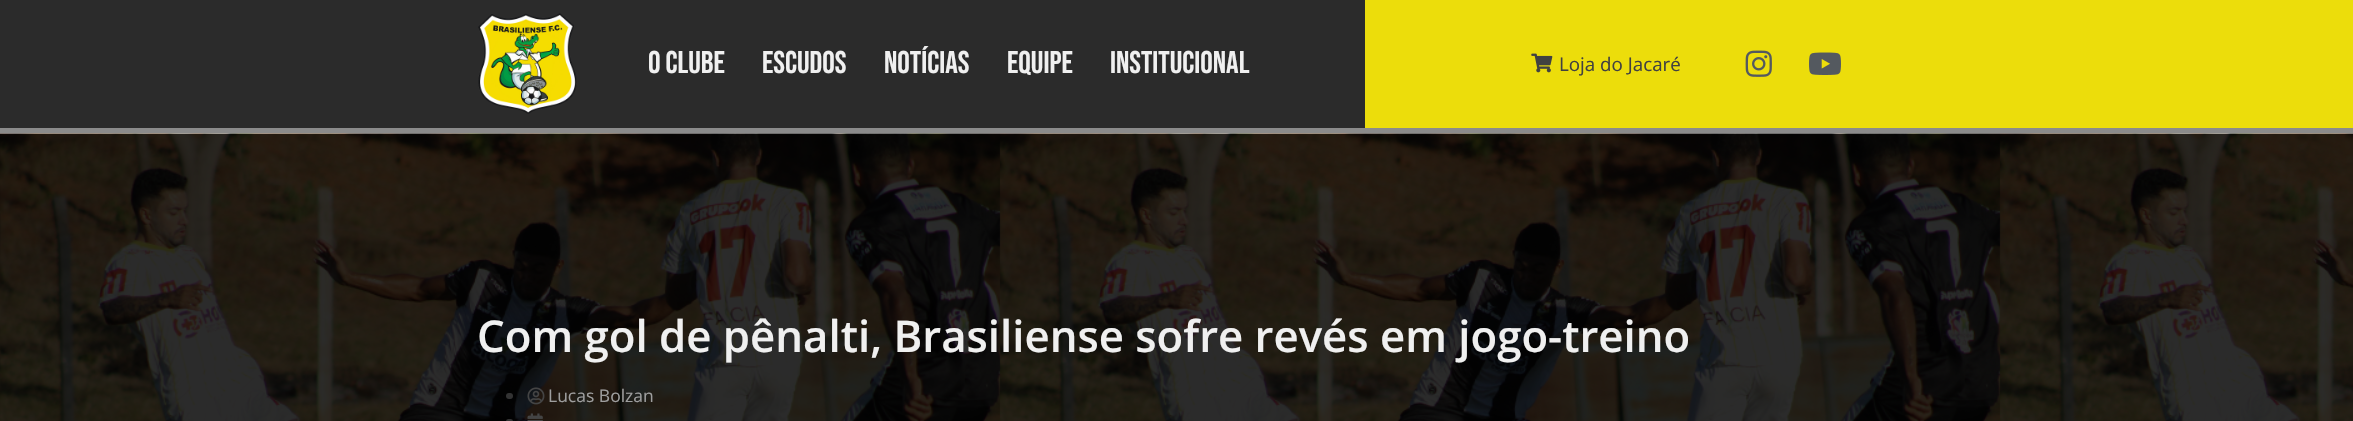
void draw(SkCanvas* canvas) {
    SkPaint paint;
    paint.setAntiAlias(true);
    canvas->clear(0xFF2B2B2B);
    paint.setColor(0xFFECDD0B);
    canvas->drawRect(SkRect::MakeXYWH(1365, 0, 988, 128), paint);
    paint.setColor(0xFF8B8B8B);
    canvas->drawRect(SkRect::MakeXYWH(0, 128, 2353, 6), paint);
    canvas->drawImageRect(SkImages::DeferredFromEncodedData(SkData::MakeFromFileName("img1.png")), SkRect::MakeXYWH(478, 13, 99, 101), SkSamplingOptions());
    SkFont font1(fontMgr->matchFamilyStyle("Bebas Neue", SkFontStyle::Normal()), 31.25f);
    font1.setSubpixel(true);
    paint.setColor(0xFFF0F0F0);
    canvas->drawString("O Clube", 648, 73, font1, paint);
    canvas->drawString("Escudos", 762, 73, font1, paint);
    canvas->drawString("Notícias", 884, 73, font1, paint);
    canvas->drawString("Equipe", 1007, 73, font1, paint);
    canvas->drawString("Institucional", 1110, 73, font1, paint);
    canvas->drawImageRect(SkImages::DeferredFromEncodedData(SkData::MakeFromFileName("img2.png")), SkRect::MakeXYWH(1531, 53, 22, 20), SkSamplingOptions());
    SkFont font2(fontMgr->matchFamilyStyle("Open Sans", SkFontStyle::Normal()), 18.75f);
    font2.setSubpixel(true);
    paint.setColor(0xFF414141);
    canvas->drawString("Loja do Jacaré", 1559, 71, font2, paint);
    canvas->drawImageRect(SkImages::DeferredFromEncodedData(SkData::MakeFromFileName("img3.png")), SkRect::MakeXYWH(1745, 50, 27, 27), SkSamplingOptions());
    canvas->drawImageRect(SkImages::DeferredFromEncodedData(SkData::MakeFromFileName("img4.png")), SkRect::MakeXYWH(1809, 52, 32, 23), SkSamplingOptions());
    canvas->drawImageRect(SkImages::DeferredFromEncodedData(SkData::MakeFromFileName("img5.png")), SkRect::MakeXYWH(0, 133, 2353, 288), SkSamplingOptions());
    SkFont font3(fontMgr->matchFamilyStyle("Open Sans", SkFontStyle(600, SkFontStyle::kNormal_Width, SkFontStyle::kUpright_Slant)), 43.75f);
    font3.setSubpixel(true);
    paint.setColor(0xFFF0F0F0);
    canvas->drawString("Com gol de pênalti, Brasiliense sofre revés em jogo-treino", 477, 352, font3, paint);
    paint.setColor(0xFF333333);
    canvas->drawRoundRect(SkRect::MakeXYWH(506, 393, 7, 6), 3, 3, paint);
    canvas->drawImageRect(SkImages::DeferredFromEncodedData(SkData::MakeFromFileName("img6.png")), SkRect::MakeXYWH(527, 387, 18, 18), SkSamplingOptions());
    SkFont font4(fontMgr->matchFamilyStyle("Open Sans", SkFontStyle::Normal()), 17.5f);
    font4.setSubpixel(true);
    paint.setColor(0xFF9E9E9E);
    canvas->drawString("Lucas Bolzan", 548, 402, font4, paint);
    canvas->drawImageRect(SkImages::DeferredFromEncodedData(SkData::MakeFromFileName("img7.png")), SkRect::MakeXYWH(527, 413, 16, 8), SkSamplingOptions());
    paint.setColor(0xFF333333);
    canvas->drawRoundRect(SkRect::MakeXYWH(506, 419, 7, 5), 3, 3, paint);
}
